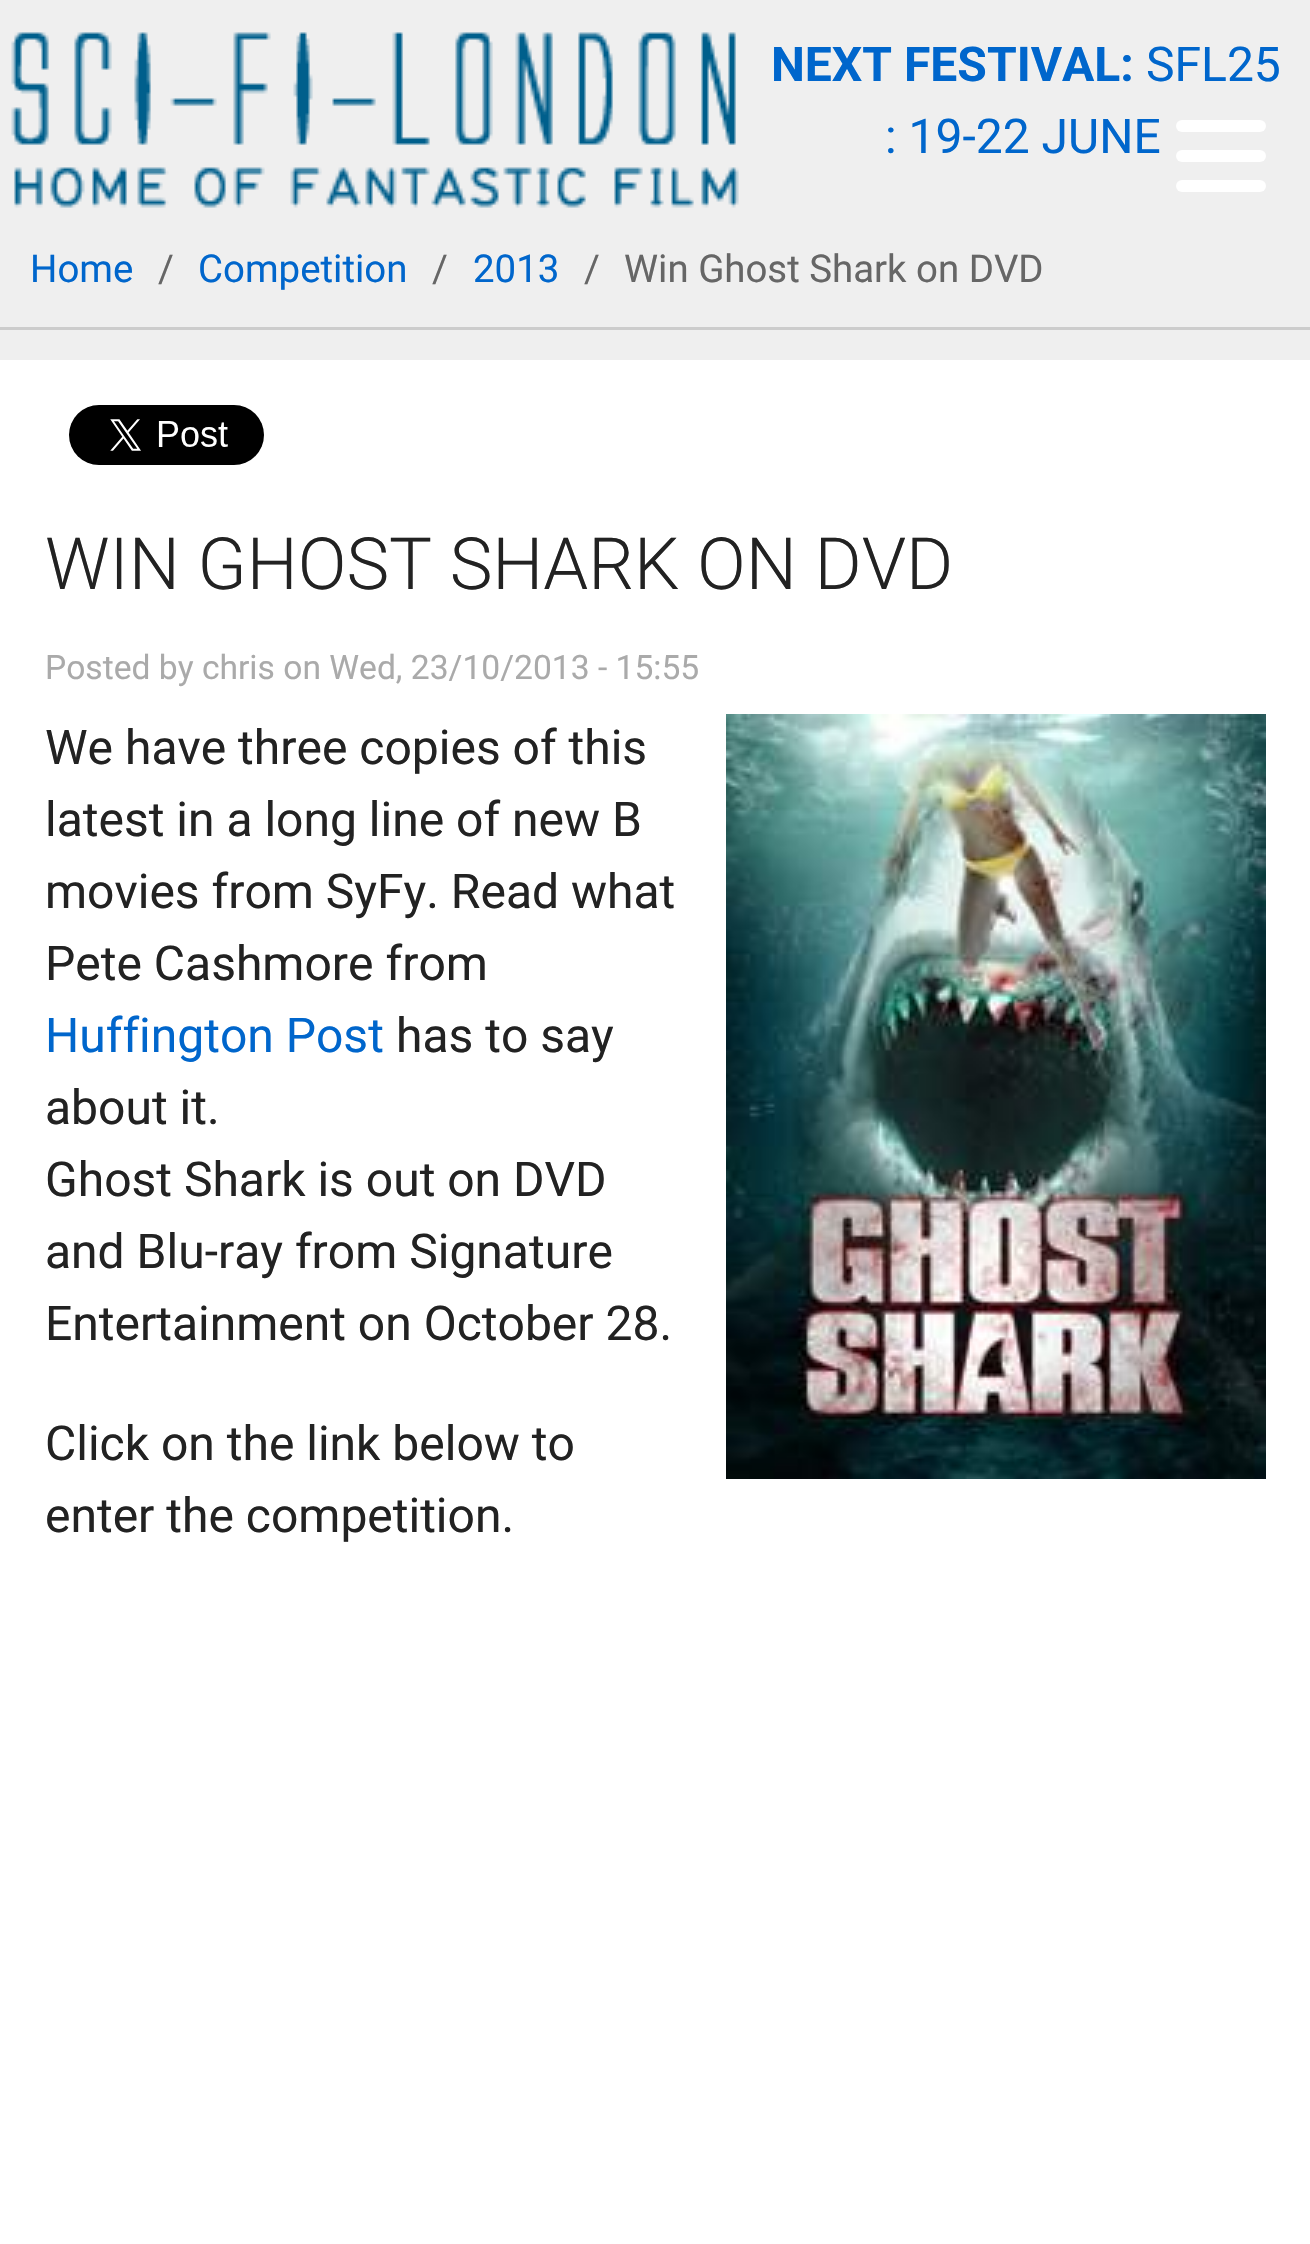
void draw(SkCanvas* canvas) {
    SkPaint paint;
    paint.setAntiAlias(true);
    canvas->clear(0xFFEFEFEF);
    canvas->drawImageRect(SkImages::DeferredFromEncodedData(SkData::MakeFromFileName("img1.png")), SkRect::MakeXYWH(11, 32, 728, 176), SkSamplingOptions());
    SkFont font1(fontMgr->matchFamilyStyle("Roboto", SkFontStyle::Bold()), 48);
    font1.setSubpixel(true);
    paint.setColor(0xFF0066CC);
    canvas->drawString("NEXT FESTIVAL:", 771, 81, font1, paint);
    SkFont font2(fontMgr->matchFamilyStyle("Roboto", SkFontStyle::Normal()), 48);
    font2.setSubpixel(true);
    canvas->drawString("SFL25", 1146, 81, font2, paint);
    canvas->drawString(": 19-22 JUNE", 885, 153, font2, paint);
    paint.setColor(0xFFFFFFFF);
    canvas->drawRoundRect(SkRect::MakeXYWH(1176, 120, 90, 12), 6, 6, paint);
    canvas->drawRoundRect(SkRect::MakeXYWH(1176, 150, 90, 12), 6, 6, paint);
    canvas->drawRoundRect(SkRect::MakeXYWH(1176, 180, 90, 12), 6, 6, paint);
    paint.setColor(0xFFCCCCCC);
    canvas->drawRect(SkRect::MakeXYWH(0, 327, 1310, 3), paint);
    SkFont font3(fontMgr->matchFamilyStyle("Roboto", SkFontStyle::Normal()), 38.4f);
    font3.setSubpixel(true);
    paint.setColor(0xFF0066CC);
    canvas->drawString("Home", 30, 282, font3, paint);
    paint.setColor(0xFF666666);
    canvas->drawString("/", 158, 282, font3, paint);
    paint.setColor(0xFF0066CC);
    canvas->drawString("Competition", 198, 282, font3, paint);
    paint.setColor(0xFF666666);
    canvas->drawString("/", 432, 282, font3, paint);
    paint.setColor(0xFF0066CC);
    canvas->drawString("2013", 473, 282, font3, paint);
    paint.setColor(0xFF666666);
    canvas->drawString("/", 584, 282, font3, paint);
    canvas->drawString("Win Ghost Shark on DVD", 624, 282, font3, paint);
    paint.setColor(0xFFFFFFFF);
    canvas->drawRect(SkRect::MakeXYWH(0, 360, 1310, 1884), paint);
    canvas->drawImageRect(SkImages::DeferredFromEncodedData(SkData::MakeFromFileName("img2.png")), SkRect::MakeXYWH(69, 405, 195, 60), SkSamplingOptions());
    SkFont font4(fontMgr->matchFamilyStyle("Roboto", SkFontStyle(300, SkFontStyle::kNormal_Width, SkFontStyle::kUpright_Slant)), 72);
    font4.setSubpixel(true);
    paint.setColor(0xFF222222);
    canvas->drawString("WIN GHOST SHARK ON DVD", 45, 589, font4, paint);
    SkFont font5(fontMgr->matchFamilyStyle("Roboto", SkFontStyle::Normal()), 33.6f);
    font5.setSubpixel(true);
    paint.setColor(0xFFAAAAAA);
    canvas->drawString("Posted by chris on Wed, 23/10/2013 - 15:55", 45, 679, font5, paint);
    paint.setColor(0xFF222222);
    canvas->drawString("We have three copies of this", 45, 764, font2, paint);
    canvas->drawImageRect(SkImages::DeferredFromEncodedData(SkData::MakeFromFileName("img3.png")), SkRect::MakeXYWH(726, 714, 540, 765), SkSamplingOptions());
    canvas->drawString("latest in a long line of new B", 45, 836, font2, paint);
    canvas->drawString("movies from SyFy. Read what", 45, 908, font2, paint);
    canvas->drawString("Pete Cashmore from", 45, 980, font2, paint);
    paint.setColor(0xFF0066CC);
    canvas->drawString("Huffington Post", 45, 1052, font2, paint);
    paint.setColor(0xFF222222);
    canvas->drawString("has to say", 396, 1052, font2, paint);
    canvas->drawString("about it.", 45, 1124, font2, paint);
    canvas->drawString("Ghost Shark is out on DVD", 45, 1196, font2, paint);
    canvas->drawString("and Blu-ray from Signature", 45, 1268, font2, paint);
    canvas->drawString("Entertainment on October 28.", 45, 1340, font2, paint);
    canvas->drawString("Click on the link below to", 45, 1460, font2, paint);
    canvas->drawString("enter the competition.", 45, 1532, font2, paint);
}
